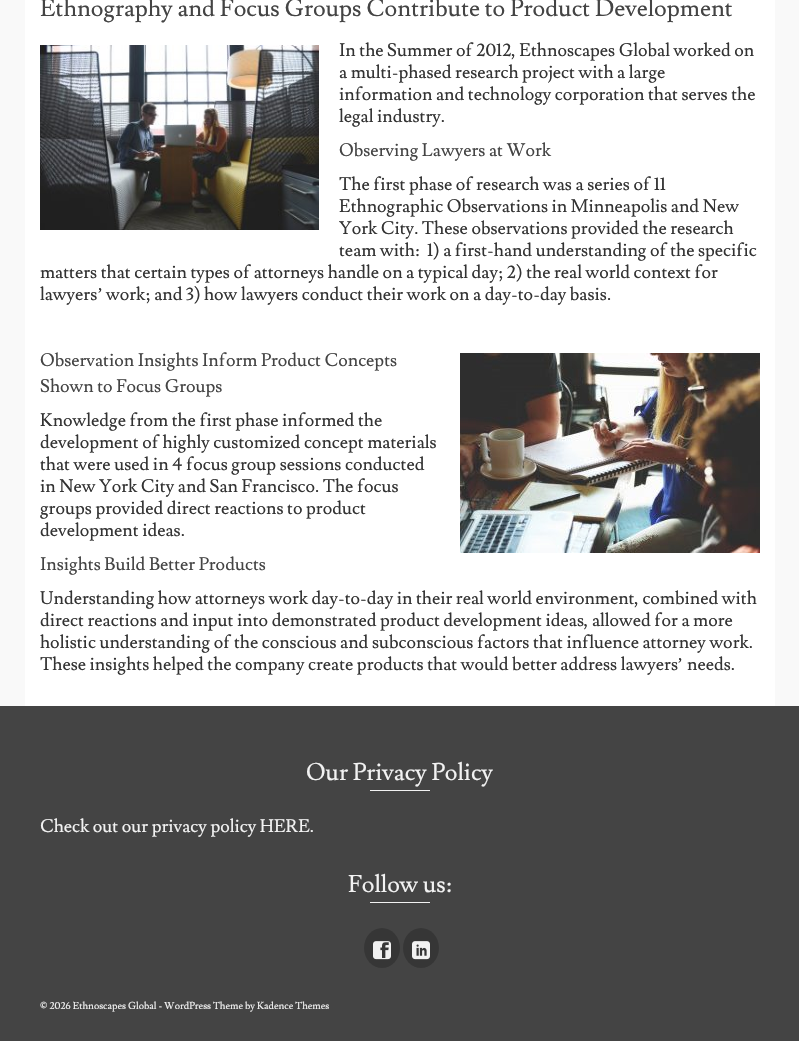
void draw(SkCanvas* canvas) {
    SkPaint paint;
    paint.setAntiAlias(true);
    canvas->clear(0xFFF9F9F9);
    paint.setColor(0xFFFFFFFF);
    canvas->drawRect(SkRect::MakeXYWH(25, 0, 750, 706), paint);
    SkFont font1(fontMgr->matchFamilyStyle("Lusitana", SkFontStyle::Normal()), 24);
    font1.setSubpixel(true);
    paint.setColor(0xFF444444);
    canvas->drawString("Ethnography and Focus Groups Contribute to Product Development", 40, 16, font1, paint);
    canvas->drawImageRect(SkImages::DeferredFromEncodedData(SkData::MakeFromFileName("img1.png")), SkRect::MakeXYWH(40, 45, 279, 185), SkSamplingOptions());
    SkFont font2(fontMgr->matchFamilyStyle("Lusitana", SkFontStyle::Normal()), 18);
    font2.setSubpixel(true);
    paint.setColor(0xFF333333);
    canvas->drawString("In the Summer of 2012, Ethnoscapes Global worked on", 339, 56, font2, paint);
    canvas->drawString("a multi-phased research project with a large", 339, 78, font2, paint);
    canvas->drawString("information and technology corporation that serves the", 339, 100, font2, paint);
    canvas->drawString("legal industry.", 339, 122, font2, paint);
    paint.setColor(0xFF444444);
    canvas->drawString("Observing Lawyers at Work", 339, 156, font2, paint);
    paint.setColor(0xFF333333);
    canvas->drawString("The first phase of research was a series of 11", 339, 190, font2, paint);
    canvas->drawString("Ethnographic Observations in Minneapolis and New", 339, 212, font2, paint);
    canvas->drawString("York City. These observations provided the research", 339, 234, font2, paint);
    canvas->drawString("team with:", 339, 256, font2, paint);
    canvas->drawString("1) a first-hand understanding of the specific", 427, 256, font2, paint);
    canvas->drawString("matters that certain types of attorneys handle on a typical day; 2) the real world context for", 40, 278, font2, paint);
    canvas->drawString("lawyers", 40, 300, font2, paint);
    SkFont font3(fontMgr->matchFamilyStyle("Liberation Serif", SkFontStyle::Normal()), 18);
    font3.setSubpixel(true);
    canvas->drawString("’", 97, 300, font3, paint);
    canvas->drawString("work; and 3) how lawyers conduct their work on a day-to-day basis.", 106, 300, font2, paint);
    paint.setColor(0xFF444444);
    canvas->drawString("Observation Insights Inform Product Concepts", 40, 366, font2, paint);
    canvas->drawImageRect(SkImages::DeferredFromEncodedData(SkData::MakeFromFileName("img2.png")), SkRect::MakeXYWH(460, 353, 300, 200), SkSamplingOptions());
    canvas->drawString("Shown to Focus Groups", 40, 392, font2, paint);
    paint.setColor(0xFF333333);
    canvas->drawString("Knowledge from the first phase informed the", 40, 426, font2, paint);
    canvas->drawString("development of highly customized concept materials", 40, 448, font2, paint);
    canvas->drawString("that were used in 4 focus group sessions conducted", 40, 470, font2, paint);
    canvas->drawString("in New York City and San Francisco. The focus", 40, 492, font2, paint);
    canvas->drawString("groups provided direct reactions to product", 40, 514, font2, paint);
    canvas->drawString("development ideas.", 40, 536, font2, paint);
    paint.setColor(0xFF444444);
    canvas->drawString("Insights Build Better Products", 40, 570, font2, paint);
    paint.setColor(0xFF333333);
    canvas->drawString("Understanding how attorneys work day-to-day in their real world environment, combined with", 40, 604, font2, paint);
    canvas->drawString("direct reactions and input into demonstrated product development ideas, allowed for a more", 40, 626, font2, paint);
    canvas->drawString("holistic understanding of the conscious and subconscious factors that influence attorney work.", 40, 648, font2, paint);
    canvas->drawString("These insights helped the company create products that would better address lawyers", 40, 670, font2, paint);
    canvas->drawString("’", 677, 670, font3, paint);
    canvas->drawString("needs.", 687, 670, font2, paint);
    paint.setColor(0xFF444444);
    canvas->drawRect(SkRect::MakeXYWH(0, 706, 799, 335), paint);
    paint.setColor(0xFFF2F2F2);
    canvas->drawString("Our Privacy Policy", 306, 780, font1, paint);
    canvas->drawRect(SkRect::MakeXYWH(370, 790, 60, 1), paint);
    canvas->drawString("Check out our privacy policy HERE.", 40, 832, font2, paint);
    canvas->drawString("Follow us:", 348, 892, font1, paint);
    canvas->drawRect(SkRect::MakeXYWH(370, 902, 60, 1), paint);
    paint.setColor(0xFF363636);
    canvas->drawOval(SkRect::MakeXYWH(364, 928, 36, 40), paint);
    canvas->drawImageRect(SkImages::DeferredFromEncodedData(SkData::MakeFromFileName("img3.png")), SkRect::MakeXYWH(373, 941, 18, 19), SkSamplingOptions());
    canvas->drawOval(SkRect::MakeXYWH(403, 928, 36, 40), paint);
    canvas->drawImageRect(SkImages::DeferredFromEncodedData(SkData::MakeFromFileName("img4.png")), SkRect::MakeXYWH(412, 941, 18, 19), SkSamplingOptions());
    SkFont font4(fontMgr->matchFamilyStyle("Lusitana", SkFontStyle::Normal()), 10);
    font4.setSubpixel(true);
    paint.setColor(0xFFF2F2F2);
    canvas->drawString("© 2026 Ethnoscapes Global - WordPress Theme by Kadence Themes", 40, 1009, font4, paint);
}
